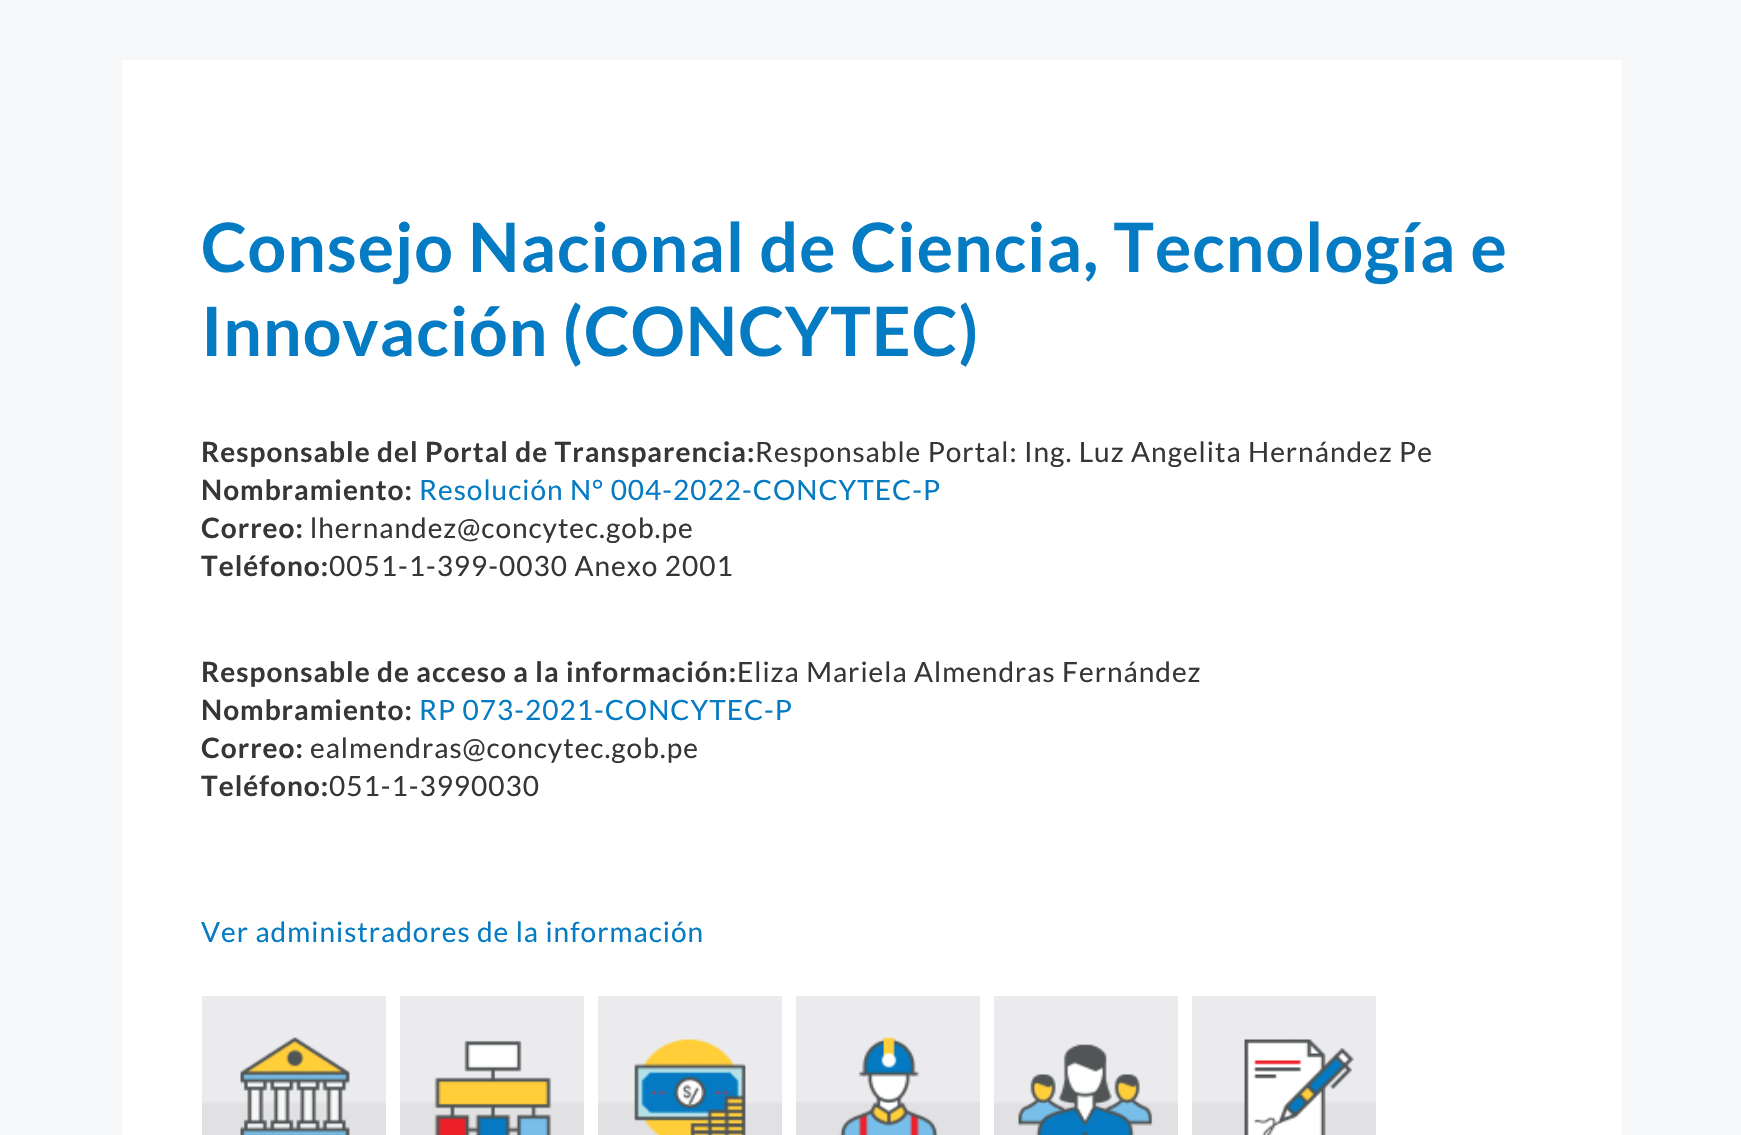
void draw(SkCanvas* canvas) {
    SkPaint paint;
    paint.setAntiAlias(true);
    auto spacedText = [&](const char* s, float x, float y, const SkFont& font, const SkPaint& ink, float letter, float word) {
        std::vector<SkGlyphID> glyphs(font.countText(s, strlen(s), SkTextEncoding::kUTF8));
        std::vector<float> xs(glyphs.size());
        font.textToGlyphs(s, strlen(s), SkTextEncoding::kUTF8, glyphs);
        font.getXPos(glyphs, xs, x);
        float extra = 0;
        for (size_t i = 0; i < glyphs.size(); i++) {
            xs[i] += extra;
            extra += letter + word * (glyphs[i] == font.unicharToGlyph(' '));
        }
        canvas->drawTextBlob(SkTextBlob::MakeFromPosHGlyphs(glyphs, xs, y, font), 0, 0, ink);
    };
    canvas->clear(0xFFF7F8FA);
    paint.setColor(0xFFFFFFFF);
    canvas->drawRect(SkRect::MakeXYWH(122, 60, 1500, 1075), paint);
    SkFont font1(fontMgr->matchFamilyStyle("Lato", SkFontStyle::Bold()), 68);
    font1.setSubpixel(true);
    paint.setColor(0xFF057BC3);
    spacedText("Consejo Nacional de Ciencia, Tecnología e", 201, 272, font1, paint, 1, 0);
    spacedText("Innovación (CONCYTEC)", 201, 356, font1, paint, 1, 0);
    SkFont font2(fontMgr->matchFamilyStyle("Lato", SkFontStyle::Bold()), 28);
    font2.setSubpixel(true);
    paint.setColor(0xFF363636);
    spacedText("Responsable del Portal de Transparencia:", 201, 462, font2, paint, 1, 0);
    SkFont font3(fontMgr->matchFamilyStyle("Lato", SkFontStyle::Normal()), 28);
    font3.setSubpixel(true);
    spacedText("Responsable Portal: Ing. Luz Angelita Hernández Pe", 755, 462, font3, paint, 1, 0);
    spacedText("Nombramiento:", 201, 500, font2, paint, 1, 0);
    paint.setColor(0xFF057BC3);
    spacedText("Resolución N° 004-2022-CONCYTEC-P", 419, 500, font3, paint, 1, 0);
    paint.setColor(0xFF363636);
    spacedText("Correo:", 201, 538, font2, paint, 1, 0);
    spacedText("lhernandez@concytec.gob.pe", 310, 538, font3, paint, 1, 0);
    spacedText("Teléfono:", 201, 576, font2, paint, 1, 0);
    spacedText("0051-1-399-0030 Anexo 2001", 329, 576, font3, paint, 1, 0);
    spacedText("Responsable de acceso a la información:", 201, 682, font2, paint, 1, 0);
    spacedText("Eliza Mariela Almendras Fernández", 737, 682, font3, paint, 1, 0);
    spacedText("Nombramiento:", 201, 720, font2, paint, 1, 0);
    paint.setColor(0xFF057BC3);
    spacedText("RP 073-2021-CONCYTEC-P", 419, 720, font3, paint, 1, 0);
    paint.setColor(0xFF363636);
    spacedText("Correo:", 201, 758, font2, paint, 1, 0);
    spacedText("ealmendras@concytec.gob.pe", 310, 758, font3, paint, 1, 0);
    spacedText("Teléfono:", 201, 796, font2, paint, 1, 0);
    spacedText("051-1-3990030", 329, 796, font3, paint, 1, 0);
    paint.setColor(0xFF057BC3);
    spacedText("Ver administradores de la información", 201, 942, font3, paint, 1, 0);
    {
        const SkColor colors[] = {0xFFEBEBED, 0xFFEBEBED, 0xFFE1E1E3, 0xFFE1E1E3, 0xFFF7F8FA, 0xFFF7F8FA};
        const float stops[] = {0, 0.35f, 0.36f, 0.7f, 0.71f, 1};
        const SkPoint ends[] = {{294, 996}, {294, 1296}};
        paint.setShader(SkGradientShader::MakeLinear(ends, colors, stops, 6, SkTileMode::kClamp));
        paint.setAlpha(255);
    }
    canvas->drawRect(SkRect::MakeXYWH(202, 996, 184, 139), paint);
    canvas->drawImageRect(SkImages::DeferredFromEncodedData(SkData::MakeFromFileName("img1.png")), SkRect::MakeXYWH(240, 1037, 110, 98), SkSamplingOptions());
    {
        const SkColor colors[] = {0xFFEBEBED, 0xFFEBEBED, 0xFFE1E1E3, 0xFFE1E1E3, 0xFFF7F8FA, 0xFFF7F8FA};
        const float stops[] = {0, 0.35f, 0.36f, 0.7f, 0.71f, 1};
        const SkPoint ends[] = {{492, 996}, {492, 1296}};
        paint.setShader(SkGradientShader::MakeLinear(ends, colors, stops, 6, SkTileMode::kClamp));
        paint.setAlpha(255);
    }
    canvas->drawRect(SkRect::MakeXYWH(400, 996, 184, 139), paint);
    canvas->drawImageRect(SkImages::DeferredFromEncodedData(SkData::MakeFromFileName("img2.png")), SkRect::MakeXYWH(434, 1040, 118, 95), SkSamplingOptions());
    {
        const SkColor colors[] = {0xFFEBEBED, 0xFFEBEBED, 0xFFE1E1E3, 0xFFE1E1E3, 0xFFF7F8FA, 0xFFF7F8FA};
        const float stops[] = {0, 0.35f, 0.36f, 0.7f, 0.71f, 1};
        const SkPoint ends[] = {{690, 996}, {690, 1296}};
        paint.setShader(SkGradientShader::MakeLinear(ends, colors, stops, 6, SkTileMode::kClamp));
        paint.setAlpha(255);
    }
    canvas->drawRect(SkRect::MakeXYWH(598, 996, 184, 139), paint);
    canvas->drawImageRect(SkImages::DeferredFromEncodedData(SkData::MakeFromFileName("img3.png")), SkRect::MakeXYWH(634, 1039, 112, 96), SkSamplingOptions());
    {
        const SkColor colors[] = {0xFFEBEBED, 0xFFEBEBED, 0xFFE1E1E3, 0xFFE1E1E3, 0xFFF7F8FA, 0xFFF7F8FA};
        const float stops[] = {0, 0.35f, 0.36f, 0.7f, 0.71f, 1};
        const SkPoint ends[] = {{888, 996}, {888, 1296}};
        paint.setShader(SkGradientShader::MakeLinear(ends, colors, stops, 6, SkTileMode::kClamp));
        paint.setAlpha(255);
    }
    canvas->drawRect(SkRect::MakeXYWH(796, 996, 184, 139), paint);
    canvas->drawImageRect(SkImages::DeferredFromEncodedData(SkData::MakeFromFileName("img4.png")), SkRect::MakeXYWH(839, 1037, 99, 98), SkSamplingOptions());
    {
        const SkColor colors[] = {0xFFEBEBED, 0xFFEBEBED, 0xFFE1E1E3, 0xFFE1E1E3, 0xFFF7F8FA, 0xFFF7F8FA};
        const float stops[] = {0, 0.35f, 0.36f, 0.7f, 0.71f, 1};
        const SkPoint ends[] = {{1086, 996}, {1086, 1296}};
        paint.setShader(SkGradientShader::MakeLinear(ends, colors, stops, 6, SkTileMode::kClamp));
        paint.setAlpha(255);
    }
    canvas->drawRect(SkRect::MakeXYWH(994, 996, 184, 139), paint);
    canvas->drawImageRect(SkImages::DeferredFromEncodedData(SkData::MakeFromFileName("img5.png")), SkRect::MakeXYWH(1018, 1044, 135, 91), SkSamplingOptions());
    {
        const SkColor colors[] = {0xFFEBEBED, 0xFFEBEBED, 0xFFE1E1E3, 0xFFE1E1E3, 0xFFF7F8FA, 0xFFF7F8FA};
        const float stops[] = {0, 0.35f, 0.36f, 0.7f, 0.71f, 1};
        const SkPoint ends[] = {{1284, 996}, {1284, 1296}};
        paint.setShader(SkGradientShader::MakeLinear(ends, colors, stops, 6, SkTileMode::kClamp));
        paint.setAlpha(255);
    }
    canvas->drawRect(SkRect::MakeXYWH(1192, 996, 184, 139), paint);
    canvas->drawImageRect(SkImages::DeferredFromEncodedData(SkData::MakeFromFileName("img6.png")), SkRect::MakeXYWH(1244, 1039, 110, 96), SkSamplingOptions());
}
